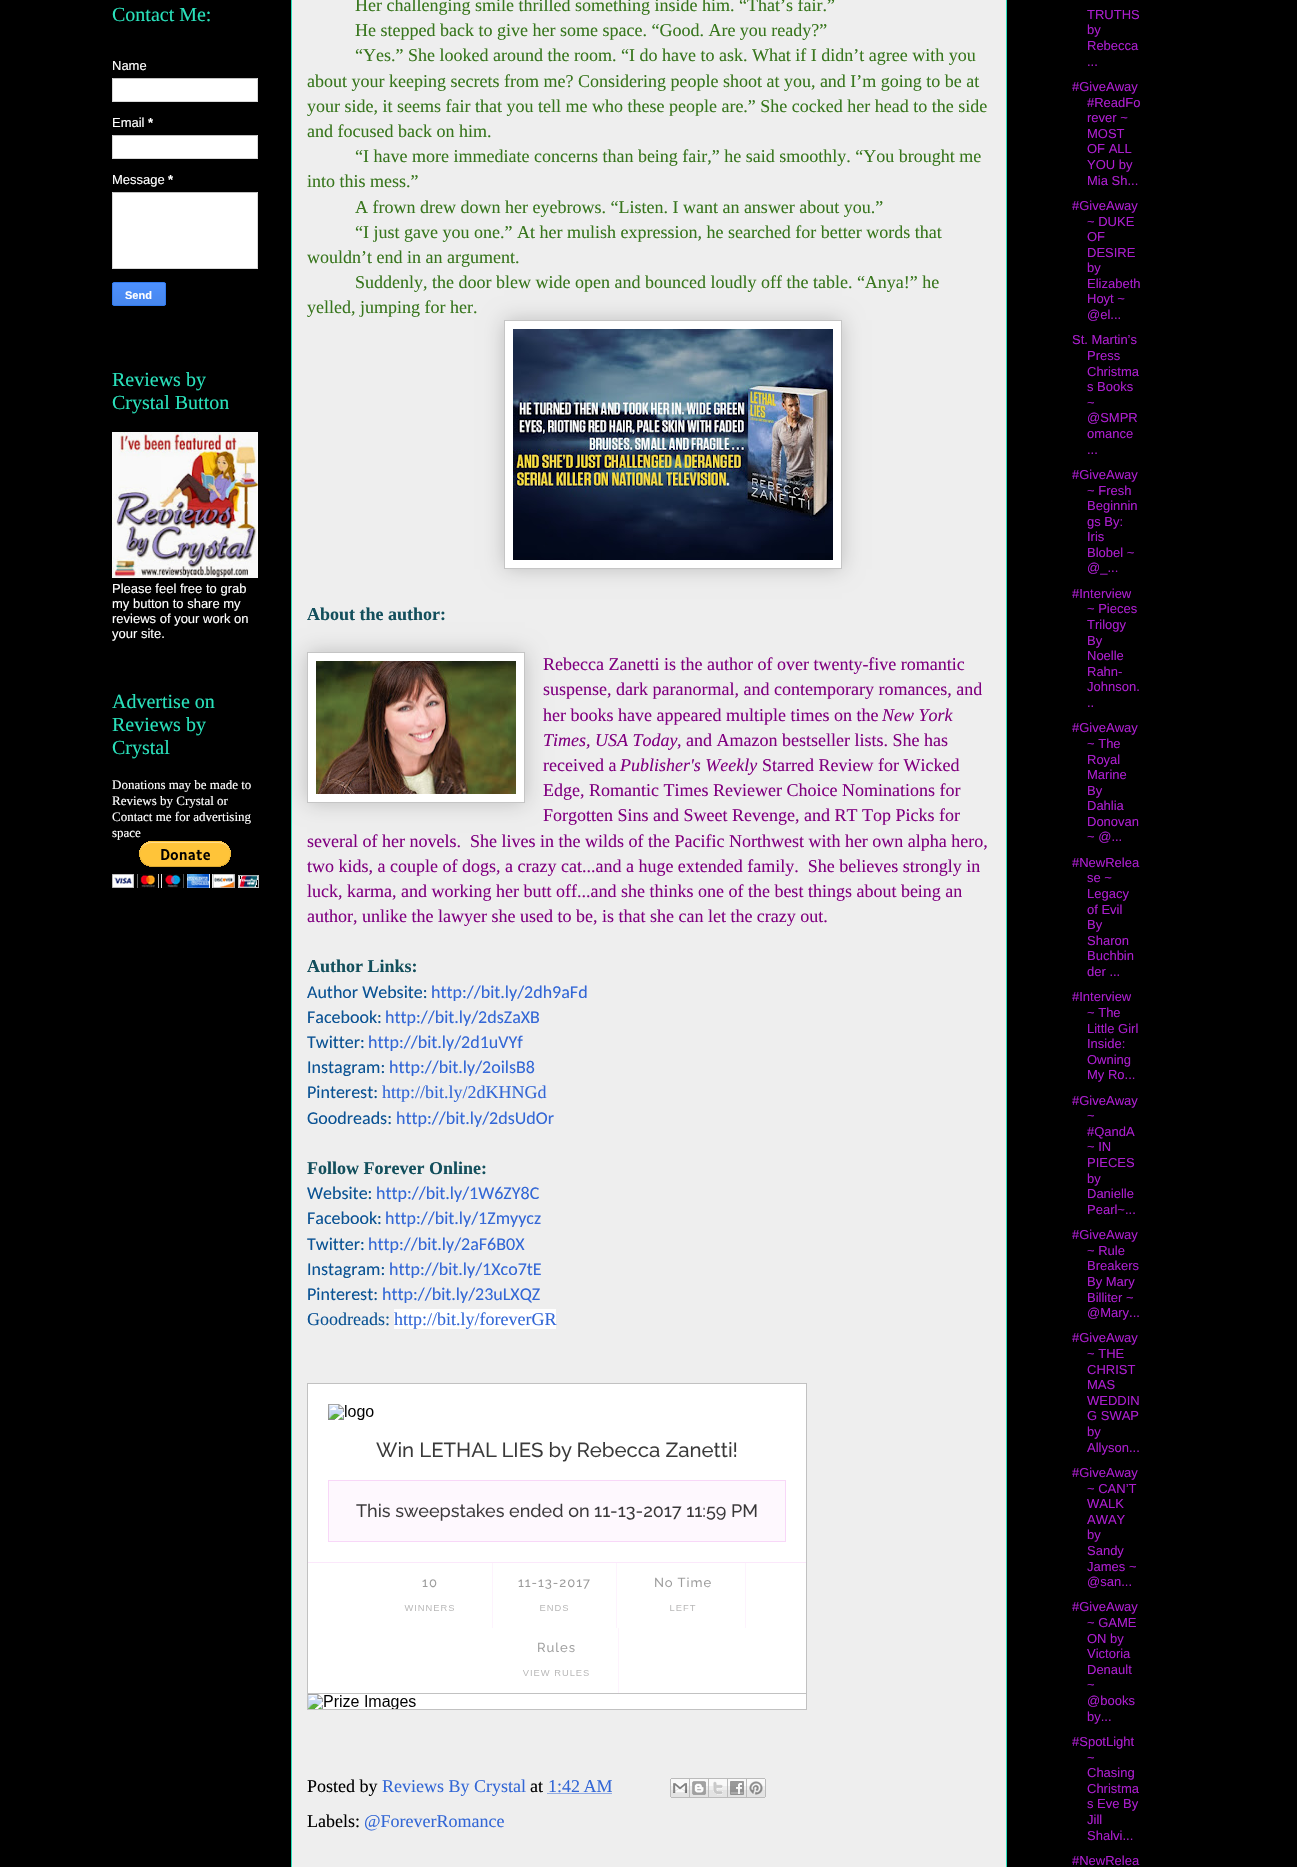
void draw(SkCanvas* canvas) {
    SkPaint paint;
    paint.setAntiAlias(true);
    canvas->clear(0xFF000000);
    SkFont font1(fontMgr->matchFamilyStyle("Liberation Serif", SkFontStyle::Normal()), 20);
    font1.setSubpixel(true);
    paint.setColor(0xFF29E1BB);
    canvas->drawString("Contact Me:", 112, 21, font1, paint);
    SkFont font2(fontMgr->matchFamilyStyle("Liberation Sans", SkFontStyle::Normal()), 13);
    font2.setSubpixel(true);
    paint.setColor(0xFFFFFFFF);
    canvas->drawString("Name", 112, 70, font2, paint);
    canvas->drawRect(SkRect::MakeXYWH(113, 79, 144, 22), paint);
    paint.setColor(0xFFC0C0C0);
    canvas->drawRect(SkRect::MakeXYWH(112, 78, 146, 1), paint);
    paint.setColor(0xFFD9D9D9);
    canvas->drawRect(SkRect::MakeXYWH(257, 78, 1, 24), paint);
    canvas->drawRect(SkRect::MakeXYWH(112, 101, 146, 1), paint);
    canvas->drawRect(SkRect::MakeXYWH(112, 78, 1, 24), paint);
    paint.setColor(0xFFFFFFFF);
    canvas->drawString("Email", 112, 127, font2, paint);
    SkFont font3(fontMgr->matchFamilyStyle("Liberation Sans", SkFontStyle::Bold()), 13);
    font3.setSubpixel(true);
    canvas->drawString("*", 148, 127, font3, paint);
    canvas->drawRect(SkRect::MakeXYWH(113, 136, 144, 22), paint);
    paint.setColor(0xFFC0C0C0);
    canvas->drawRect(SkRect::MakeXYWH(112, 135, 146, 1), paint);
    paint.setColor(0xFFD9D9D9);
    canvas->drawRect(SkRect::MakeXYWH(257, 135, 1, 24), paint);
    canvas->drawRect(SkRect::MakeXYWH(112, 158, 146, 1), paint);
    canvas->drawRect(SkRect::MakeXYWH(112, 135, 1, 24), paint);
    paint.setColor(0xFFFFFFFF);
    canvas->drawString("Message", 112, 184, font2, paint);
    canvas->drawString("*", 168, 184, font3, paint);
    canvas->drawRect(SkRect::MakeXYWH(113, 193, 144, 75), paint);
    paint.setColor(0xFFC0C0C0);
    canvas->drawRect(SkRect::MakeXYWH(112, 192, 146, 1), paint);
    paint.setColor(0xFFD9D9D9);
    canvas->drawRect(SkRect::MakeXYWH(257, 192, 1, 77), paint);
    canvas->drawRect(SkRect::MakeXYWH(112, 268, 146, 1), paint);
    canvas->drawRect(SkRect::MakeXYWH(112, 192, 1, 77), paint);
    canvas->save();
    canvas->clipPath(SkPathBuilder().moveTo(114, 282).lineTo(164, 282).cubicTo(165, 282, 166, 283, 166, 284).lineTo(166, 304).cubicTo(166, 305, 165, 306, 164, 306).lineTo(114, 306).cubicTo(113, 306, 112, 305, 112, 304).lineTo(112, 284).cubicTo(112, 283, 113, 282, 114, 282).close().detach(), true);
    {
        const SkColor colors[] = {0xFF4D90FE, 0xFF4787ED};
        const float stops[] = {0, 1};
        const SkPoint ends[] = {{139, 283}, {139, 305}};
        paint.setShader(SkGradientShader::MakeLinear(ends, colors, stops, 2, SkTileMode::kClamp));
        paint.setAlpha(255);
    }
    canvas->drawRect(SkRect::MakeXYWH(112, 283, 54, 22), paint);
    canvas->restore();
    paint.setStyle(SkPaint::kStroke_Style);
    paint.setStrokeWidth(1);
    paint.setShader(nullptr);
    paint.setColor(0xFF3079ED);
    canvas->drawRoundRect(SkRect::MakeXYWH(112.5f, 282.5f, 53, 23), 1.5f, 1.5f, paint);
    SkFont font4(fontMgr->matchFamilyStyle("Liberation Sans", SkFontStyle::Bold()), 11);
    font4.setSubpixel(true);
    paint.setStyle(SkPaint::kFill_Style);
    paint.setColor(0xFFFFFFFF);
    canvas->drawString("Send", 125, 299, font4, paint);
    paint.setColor(0xFF29E1BB);
    canvas->drawString("Reviews by", 112, 386, font1, paint);
    canvas->drawString("Crystal Button", 112, 409, font1, paint);
    canvas->drawImageRect(SkImages::DeferredFromEncodedData(SkData::MakeFromFileName("img1.png")), SkRect::MakeXYWH(112, 432, 146, 146), SkSamplingOptions());
    paint.setColor(0xFFFFFFFF);
    canvas->drawString("Please feel free to grab", 112, 593, font2, paint);
    canvas->drawString("my button to share my", 112, 608, font2, paint);
    canvas->drawString("reviews of your work on", 112, 623, font2, paint);
    canvas->drawString("your site.", 112, 638, font2, paint);
    paint.setColor(0xFF29E1BB);
    canvas->drawString("Advertise on", 112, 708, font1, paint);
    canvas->drawString("Reviews by", 112, 731, font1, paint);
    canvas->drawString("Crystal", 112, 754, font1, paint);
    SkFont font5(fontMgr->matchFamilyStyle("Liberation Serif", SkFontStyle::Normal()), 13);
    font5.setSubpixel(true);
    paint.setColor(0xFFFFFFFF);
    canvas->drawString("Donations may be made to", 112, 789, font5, paint);
    canvas->drawString("Reviews by Crystal or", 112, 805, font5, paint);
    canvas->drawString("Contact me for advertising", 112, 821, font5, paint);
    canvas->drawString("space", 112, 837, font5, paint);
    canvas->drawImageRect(SkImages::DeferredFromEncodedData(SkData::MakeFromFileName("img2.png")), SkRect::MakeXYWH(112, 841, 147, 47), SkSamplingOptions());
    paint.setColor(0xFFEEEEEE);
    canvas->drawRect(SkRect::MakeXYWH(291.5f, -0.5f, 715, 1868), paint);
    paint.setStyle(SkPaint::kStroke_Style);
    paint.setColor(0xFF29E1BB);
    canvas->drawRect(SkRect::MakeXYWH(291.5f, -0.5f, 715, 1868), paint);
    SkFont font6(fontMgr->matchFamilyStyle("Liberation Serif", SkFontStyle::Normal()), 18);
    font6.setSubpixel(true);
    paint.setStyle(SkPaint::kFill_Style);
    paint.setColor(0xFF38761D);
    canvas->drawString("Her challenging smile thrilled something inside him. “That’s fair.”", 355, 11, font6, paint);
    canvas->drawString("He stepped back to give her some space. “Good. Are you ready?”", 355, 36, font6, paint);
    canvas->drawString("“Yes.” She looked around the room. “I do have to ask. What if I didn’t agree with you", 355, 61, font6, paint);
    canvas->drawString("about your keeping secrets from me? Considering people shoot at you, and I’m going to be at", 307, 87, font6, paint);
    canvas->drawString("your side, it seems fair that you tell me who these people are.” She cocked her head to the side", 307, 112, font6, paint);
    canvas->drawString("and focused back on him.", 307, 137, font6, paint);
    canvas->drawString("“I have more immediate concerns than being fair,” he said smoothly. “You brought me", 355, 162, font6, paint);
    canvas->drawString("into this mess.”", 307, 187, font6, paint);
    canvas->drawString("A frown drew down her eyebrows. “Listen. I want an answer about you.”", 355, 213, font6, paint);
    canvas->drawString("“I just gave you one.” At her mulish expression, he searched for better words that", 355, 238, font6, paint);
    canvas->drawString("wouldn’t end in an argument.", 307, 263, font6, paint);
    canvas->drawString("Suddenly, the door blew wide open and bounced loudly off the table. “Anya!” he", 355, 288, font6, paint);
    canvas->drawString("yelled, jumping for her.", 307, 313, font6, paint);
    paint.setColor(0x33000000);
    paint.setMaskFilter(SkMaskFilter::MakeBlur(kNormal_SkBlurStyle, 10));
    canvas->drawRect(SkRect::MakeXYWH(504, 320, 338, 249), paint);
    paint.setMaskFilter(nullptr);
    paint.setColor(0xFFFFFFFF);
    canvas->drawRect(SkRect::MakeXYWH(504.5f, 320.5f, 337, 248), paint);
    paint.setStyle(SkPaint::kStroke_Style);
    paint.setColor(0xFFC5C5C5);
    canvas->drawRect(SkRect::MakeXYWH(504.5f, 320.5f, 337, 248), paint);
    canvas->drawImageRect(SkImages::DeferredFromEncodedData(SkData::MakeFromFileName("img3.png")), SkRect::MakeXYWH(513, 329, 320, 231), SkSamplingOptions());
    SkFont font7(fontMgr->matchFamilyStyle("Liberation Serif", SkFontStyle::Bold()), 18);
    font7.setSubpixel(true);
    paint.setStyle(SkPaint::kFill_Style);
    paint.setColor(0xFF134F5C);
    canvas->drawString("About the author:", 307, 620, font7, paint);
    paint.setColor(0x33000000);
    paint.setMaskFilter(SkMaskFilter::MakeBlur(kNormal_SkBlurStyle, 10));
    canvas->drawRect(SkRect::MakeXYWH(307, 652, 218, 151), paint);
    paint.setMaskFilter(nullptr);
    paint.setColor(0xFFFFFFFF);
    canvas->drawRect(SkRect::MakeXYWH(307.5f, 652.5f, 217, 150), paint);
    paint.setStyle(SkPaint::kStroke_Style);
    paint.setColor(0xFFC5C5C5);
    canvas->drawRect(SkRect::MakeXYWH(307.5f, 652.5f, 217, 150), paint);
    canvas->drawImageRect(SkImages::DeferredFromEncodedData(SkData::MakeFromFileName("img4.png")), SkRect::MakeXYWH(316, 661, 200, 133), SkSamplingOptions());
    paint.setStyle(SkPaint::kFill_Style);
    paint.setColor(0xFF800080);
    canvas->drawString("Rebecca Zanetti is the author of over twenty-five romantic", 543, 670, font6, paint);
    canvas->drawString("suspense, dark paranormal, and contemporary romances, and", 543, 695, font6, paint);
    canvas->drawString("her books have appeared multiple times on the", 543, 721, font6, paint);
    SkFont font8(fontMgr->matchFamilyStyle("Liberation Serif", SkFontStyle::Italic()), 18);
    font8.setSubpixel(true);
    canvas->drawString("New York", 882, 721, font8, paint);
    canvas->drawString("Times, USA Today", 543, 746, font8, paint);
    canvas->drawString(", and Amazon bestseller lists. She has", 677, 746, font6, paint);
    canvas->drawString("received a", 543, 771, font6, paint);
    canvas->drawString("Publisher's Weekly", 620, 771, font8, paint);
    canvas->drawString("Starred Review for Wicked", 762, 771, font6, paint);
    canvas->drawString("Edge, Romantic Times Reviewer Choice Nominations for", 543, 796, font6, paint);
    canvas->drawString("Forgotten Sins and Sweet Revenge, and RT Top Picks for", 543, 821, font6, paint);
    canvas->drawString("several of her novels.  She lives in the wilds of the Pacific Northwest with her own alpha hero,", 307, 847, font6, paint);
    canvas->drawString("two kids, a couple of dogs, a crazy cat...and a huge extended family.  She believes strongly in", 307, 872, font6, paint);
    canvas->drawString("luck, karma, and working her butt off...and she thinks one of the best things about being an", 307, 897, font6, paint);
    canvas->drawString("author, unlike the lawyer she used to be, is that she can let the crazy out.", 307, 922, font6, paint);
    paint.setColor(0xFF134F5C);
    canvas->drawString("Author Links:", 307, 972, font7, paint);
    SkFont font9(fontMgr->matchFamilyStyle("Carlito", SkFontStyle::Normal()), 18);
    font9.setSubpixel(true);
    paint.setColor(0xFF0B5394);
    canvas->drawString("Author Website:", 307, 998, font9, paint);
    paint.setColor(0xFF3367D6);
    canvas->drawString("http://bit.ly/2dh9aFd", 431, 998, font9, paint);
    paint.setColor(0xFF0B5394);
    canvas->drawString("Facebook:", 307, 1023, font9, paint);
    paint.setColor(0xFF3367D6);
    canvas->drawString("http://bit.ly/2dsZaXB", 385, 1023, font9, paint);
    paint.setColor(0xFF0B5394);
    canvas->drawString("Twitter:", 307, 1048, font9, paint);
    paint.setColor(0xFF3367D6);
    canvas->drawString("http://bit.ly/2d1uVYf", 368, 1048, font9, paint);
    paint.setColor(0xFF0B5394);
    canvas->drawString("Instagram:", 307, 1073, font9, paint);
    paint.setColor(0xFF3367D6);
    canvas->drawString("http://bit.ly/2oilsB8", 389, 1073, font9, paint);
    paint.setColor(0xFF0B5394);
    canvas->drawString("Pinterest:", 307, 1098, font9, paint);
    paint.setColor(0xFF3367D6);
    canvas->drawString("http://bit.ly/2dKHNGd", 382, 1098, font6, paint);
    paint.setColor(0xFF0B5394);
    canvas->drawString("Goodreads:", 307, 1124, font9, paint);
    paint.setColor(0xFF3367D6);
    canvas->drawString("http://bit.ly/2dsUdOr", 396, 1124, font9, paint);
    paint.setColor(0xFF134F5C);
    canvas->drawString("Follow Forever Online:", 307, 1174, font7, paint);
    paint.setColor(0xFF0B5394);
    canvas->drawString("Website:", 307, 1199, font9, paint);
    paint.setColor(0xFF3367D6);
    canvas->drawString("http://bit.ly/1W6ZY8C", 376, 1199, font9, paint);
    paint.setColor(0xFF0B5394);
    canvas->drawString("Facebook:", 307, 1224, font9, paint);
    paint.setColor(0xFF3367D6);
    canvas->drawString("http://bit.ly/1Zmyycz", 385, 1224, font9, paint);
    paint.setColor(0xFF0B5394);
    canvas->drawString("Twitter:", 307, 1250, font9, paint);
    paint.setColor(0xFF3367D6);
    canvas->drawString("http://bit.ly/2aF6B0X", 368, 1250, font9, paint);
    paint.setColor(0xFF0B5394);
    canvas->drawString("Instagram:", 307, 1275, font9, paint);
    paint.setColor(0xFF3367D6);
    canvas->drawString("http://bit.ly/1Xco7tE", 389, 1275, font9, paint);
    paint.setColor(0xFF0B5394);
    canvas->drawString("Pinterest:", 307, 1300, font9, paint);
    paint.setColor(0xFF3367D6);
    canvas->drawString("http://bit.ly/23uLXQZ", 382, 1300, font9, paint);
    paint.setColor(0xFF0B5394);
    canvas->drawString("Goodreads:", 307, 1325, font6, paint);
    paint.setColor(0xFFFFFFFF);
    canvas->drawRect(SkRect::MakeXYWH(394, 1309, 162, 20), paint);
    paint.setColor(0xFF3367D6);
    canvas->drawString("http://bit.ly/foreverGR", 394, 1325, font6, paint);
    canvas->drawImageRect(SkImages::DeferredFromEncodedData(SkData::MakeFromFileName("img5.png")), SkRect::MakeXYWH(307, 1383, 500, 327), SkSamplingOptions());
    paint.setColor(0xFF000000);
    canvas->drawString("Posted by", 307, 1792, font6, paint);
    paint.setColor(0xFF3367D6);
    canvas->drawString("Reviews By Crystal", 382, 1792, font6, paint);
    paint.setColor(0xFF000000);
    canvas->drawString("at", 530, 1792, font6, paint);
    paint.setColor(0xFF3367D6);
    canvas->drawString("1:42 AM", 548, 1792, font6, paint);
    paint.setStyle(SkPaint::kStroke_Style);
    paint.setPathEffect(SkDashPathEffect::Make({{1, 1}}, 0));
    canvas->drawPath(SkPathBuilder().moveTo(547.5f, 1793.5f).lineTo(612, 1793.5f).detach(), paint);
    paint.setPathEffect(nullptr);
    canvas->drawImageRect(SkImages::DeferredFromEncodedData(SkData::MakeFromFileName("img6.png")), SkRect::MakeXYWH(670, 1778, 20, 20), SkSamplingOptions());
    canvas->drawImageRect(SkImages::DeferredFromEncodedData(SkData::MakeFromFileName("img7.png")), SkRect::MakeXYWH(690, 1778, 19, 20), SkSamplingOptions());
    canvas->drawImageRect(SkImages::DeferredFromEncodedData(SkData::MakeFromFileName("img8.png")), SkRect::MakeXYWH(709, 1778, 19, 20), SkSamplingOptions());
    canvas->drawImageRect(SkImages::DeferredFromEncodedData(SkData::MakeFromFileName("img9.png")), SkRect::MakeXYWH(728, 1778, 19, 20), SkSamplingOptions());
    canvas->drawImageRect(SkImages::DeferredFromEncodedData(SkData::MakeFromFileName("img10.png")), SkRect::MakeXYWH(747, 1778, 19, 20), SkSamplingOptions());
    paint.setStyle(SkPaint::kFill_Style);
    paint.setColor(0xFF000000);
    canvas->drawString("Labels:", 307, 1827, font6, paint);
    paint.setColor(0xFF3367D6);
    canvas->drawString("@ForeverRomance", 364, 1827, font6, paint);
    paint.setColor(0xFFAA1DCC);
    canvas->drawString("TRUTHS", 1087, 19, font2, paint);
    canvas->drawString("by", 1087, 34, font2, paint);
    canvas->drawString("Rebecca", 1087, 50, font2, paint);
    canvas->drawString("...", 1087, 66, font2, paint);
    canvas->drawString("#GiveAway", 1072, 91, font2, paint);
    canvas->drawString("#ReadFo", 1087, 107, font2, paint);
    canvas->drawString("rever ~", 1087, 122, font2, paint);
    canvas->drawString("MOST", 1087, 138, font2, paint);
    canvas->drawString("OF ALL", 1087, 153, font2, paint);
    canvas->drawString("YOU by", 1087, 169, font2, paint);
    canvas->drawString("Mia Sh...", 1087, 185, font2, paint);
    canvas->drawString("#GiveAway", 1072, 210, font2, paint);
    canvas->drawString("~ DUKE", 1087, 226, font2, paint);
    canvas->drawString("OF", 1087, 241, font2, paint);
    canvas->drawString("DESIRE", 1087, 257, font2, paint);
    canvas->drawString("by", 1087, 272, font2, paint);
    canvas->drawString("Elizabeth", 1087, 288, font2, paint);
    canvas->drawString("Hoyt ~", 1087, 303, font2, paint);
    canvas->drawString("@el...", 1087, 319, font2, paint);
    canvas->drawString("St. Martin’s", 1072, 344, font2, paint);
    canvas->drawString("Press", 1087, 360, font2, paint);
    canvas->drawString("Christma", 1087, 376, font2, paint);
    canvas->drawString("s Books", 1087, 391, font2, paint);
    canvas->drawString("~", 1087, 407, font2, paint);
    canvas->drawString("@SMPR", 1087, 422, font2, paint);
    canvas->drawString("omance", 1087, 438, font2, paint);
    canvas->drawString("...", 1087, 454, font2, paint);
    canvas->drawString("#GiveAway", 1072, 479, font2, paint);
    canvas->drawString("~ Fresh", 1087, 495, font2, paint);
    canvas->drawString("Beginnin", 1087, 510, font2, paint);
    canvas->drawString("gs By:", 1087, 526, font2, paint);
    canvas->drawString("Iris", 1087, 541, font2, paint);
    canvas->drawString("Blobel ~", 1087, 557, font2, paint);
    canvas->drawString("@_...", 1087, 572, font2, paint);
    canvas->drawString("#Interview", 1072, 598, font2, paint);
    canvas->drawString("~ Pieces", 1087, 613, font2, paint);
    canvas->drawString("Trilogy", 1087, 629, font2, paint);
    canvas->drawString("By", 1087, 645, font2, paint);
    canvas->drawString("Noelle", 1087, 660, font2, paint);
    canvas->drawString("Rahn-", 1087, 676, font2, paint);
    canvas->drawString("Johnson.", 1087, 691, font2, paint);
    canvas->drawString("..", 1087, 707, font2, paint);
    canvas->drawString("#GiveAway", 1072, 732, font2, paint);
    canvas->drawString("~ The", 1087, 748, font2, paint);
    canvas->drawString("Royal", 1087, 764, font2, paint);
    canvas->drawString("Marine", 1087, 779, font2, paint);
    canvas->drawString("By", 1087, 795, font2, paint);
    canvas->drawString("Dahlia", 1087, 810, font2, paint);
    canvas->drawString("Donovan", 1087, 826, font2, paint);
    canvas->drawString("~ @...", 1087, 841, font2, paint);
    canvas->drawString("#NewRelea", 1072, 867, font2, paint);
    canvas->drawString("se ~", 1087, 882, font2, paint);
    canvas->drawString("Legacy", 1087, 898, font2, paint);
    canvas->drawString("of Evil", 1087, 914, font2, paint);
    canvas->drawString("By", 1087, 929, font2, paint);
    canvas->drawString("Sharon", 1087, 945, font2, paint);
    canvas->drawString("Buchbin", 1087, 960, font2, paint);
    canvas->drawString("der ...", 1087, 976, font2, paint);
    canvas->drawString("#Interview", 1072, 1001, font2, paint);
    canvas->drawString("~ The", 1087, 1017, font2, paint);
    canvas->drawString("Little Girl", 1087, 1033, font2, paint);
    canvas->drawString("Inside:", 1087, 1048, font2, paint);
    canvas->drawString("Owning", 1087, 1064, font2, paint);
    canvas->drawString("My Ro...", 1087, 1079, font2, paint);
    canvas->drawString("#GiveAway", 1072, 1105, font2, paint);
    canvas->drawString("~", 1087, 1120, font2, paint);
    canvas->drawString("#QandA", 1087, 1136, font2, paint);
    canvas->drawString("~ IN", 1087, 1151, font2, paint);
    canvas->drawString("PIECES", 1087, 1167, font2, paint);
    canvas->drawString("by", 1087, 1183, font2, paint);
    canvas->drawString("Danielle", 1087, 1198, font2, paint);
    canvas->drawString("Pearl~...", 1087, 1214, font2, paint);
    canvas->drawString("#GiveAway", 1072, 1239, font2, paint);
    canvas->drawString("~ Rule", 1087, 1255, font2, paint);
    canvas->drawString("Breakers", 1087, 1270, font2, paint);
    canvas->drawString("By Mary", 1087, 1286, font2, paint);
    canvas->drawString("Billiter ~", 1087, 1302, font2, paint);
    canvas->drawString("@Mary...", 1087, 1317, font2, paint);
    canvas->drawString("#GiveAway", 1072, 1342, font2, paint);
    canvas->drawString("~ THE", 1087, 1358, font2, paint);
    canvas->drawString("CHRIST", 1087, 1374, font2, paint);
    canvas->drawString("MAS", 1087, 1389, font2, paint);
    canvas->drawString("WEDDIN", 1087, 1405, font2, paint);
    canvas->drawString("G SWAP", 1087, 1420, font2, paint);
    canvas->drawString("by", 1087, 1436, font2, paint);
    canvas->drawString("Allyson...", 1087, 1452, font2, paint);
    canvas->drawString("#GiveAway", 1072, 1477, font2, paint);
    canvas->drawString("~ CAN’T", 1087, 1493, font2, paint);
    canvas->drawString("WALK", 1087, 1508, font2, paint);
    canvas->drawString("AWAY", 1087, 1524, font2, paint);
    canvas->drawString("by", 1087, 1539, font2, paint);
    canvas->drawString("Sandy", 1087, 1555, font2, paint);
    canvas->drawString("James ~", 1087, 1571, font2, paint);
    canvas->drawString("@san...", 1087, 1586, font2, paint);
    canvas->drawString("#GiveAway", 1072, 1611, font2, paint);
    canvas->drawString("~ GAME", 1087, 1627, font2, paint);
    canvas->drawString("ON by", 1087, 1643, font2, paint);
    canvas->drawString("Victoria", 1087, 1658, font2, paint);
    canvas->drawString("Denault", 1087, 1674, font2, paint);
    canvas->drawString("~", 1087, 1689, font2, paint);
    canvas->drawString("@books", 1087, 1705, font2, paint);
    canvas->drawString("by...", 1087, 1721, font2, paint);
    canvas->drawString("#SpotLight", 1072, 1746, font2, paint);
    canvas->drawString("~", 1087, 1762, font2, paint);
    canvas->drawString("Chasing", 1087, 1777, font2, paint);
    canvas->drawString("Christma", 1087, 1793, font2, paint);
    canvas->drawString("s Eve By", 1087, 1808, font2, paint);
    canvas->drawString("Jill", 1087, 1824, font2, paint);
    canvas->drawString("Shalvi...", 1087, 1840, font2, paint);
    canvas->drawString("#NewRelea", 1072, 1865, font2, paint);
}
